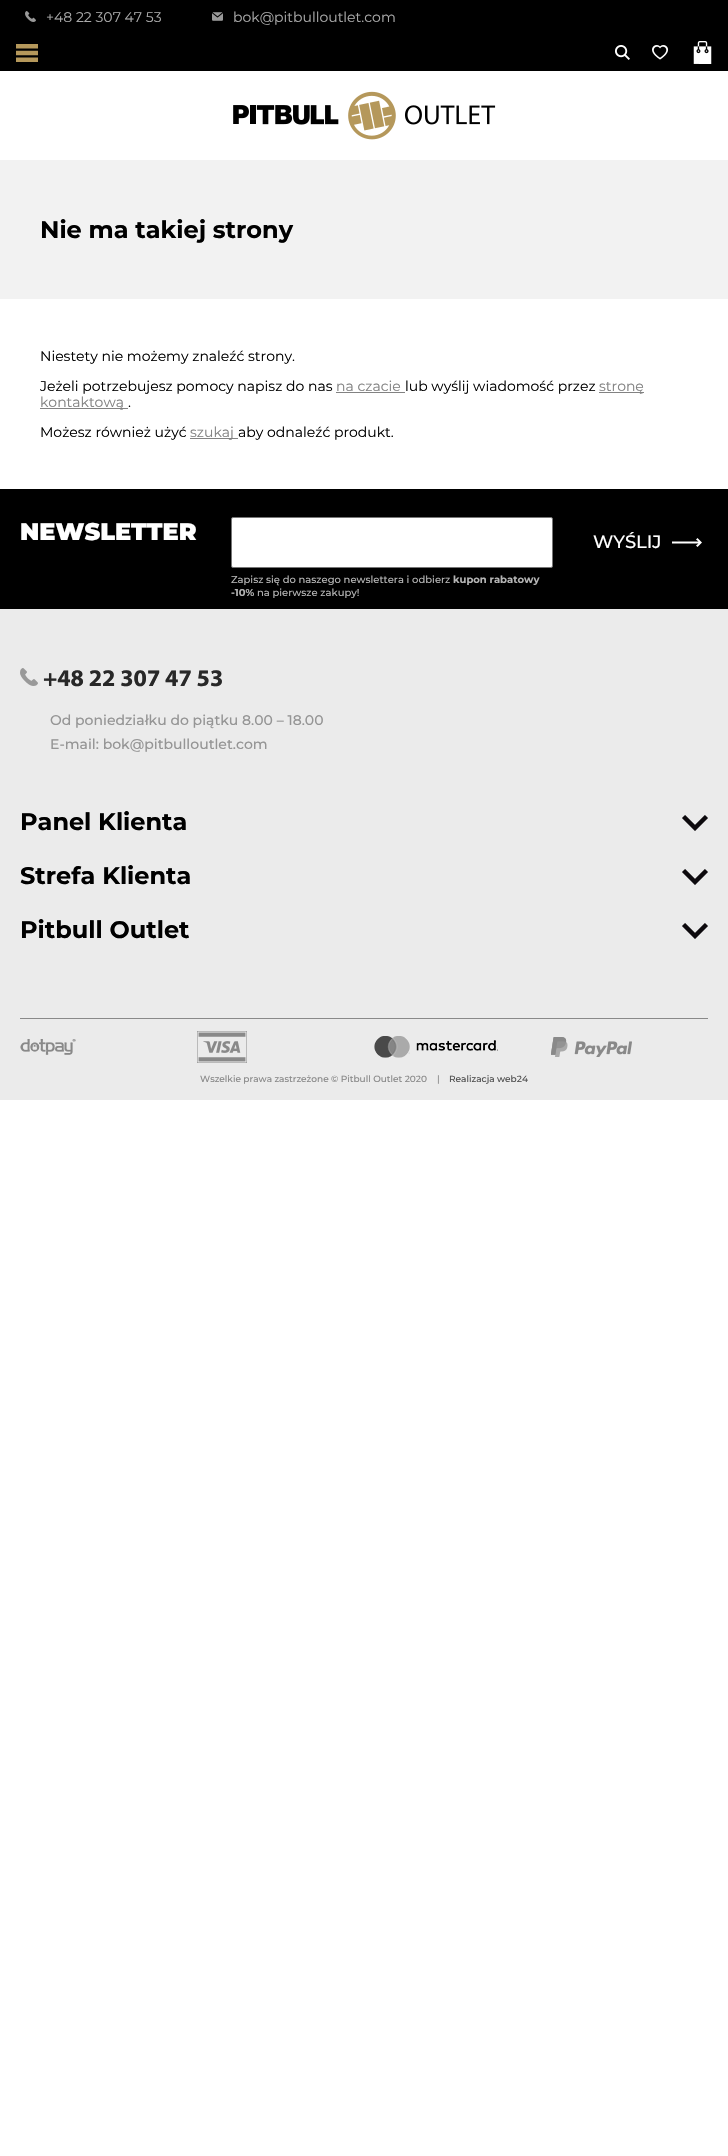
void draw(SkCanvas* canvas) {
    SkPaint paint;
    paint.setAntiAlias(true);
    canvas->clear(0xFFFFFFFF);
    paint.setColor(0xFF000000);
    canvas->drawRect(SkRect::MakeXYWH(0, 0, 728, 34), paint);
    canvas->drawImageRect(SkImages::DeferredFromEncodedData(SkData::MakeFromFileName("img1.png")), SkRect::MakeXYWH(25, 11, 11, 11), SkSamplingOptions());
    SkFont font1(fontMgr->matchFamilyStyle("Montserrat", SkFontStyle::Normal()), 14);
    font1.setSubpixel(true);
    paint.setColor(0xFFAAAAAA);
    canvas->drawString("+48 22 307 47 53", 46, 22, font1, paint);
    canvas->drawImageRect(SkImages::DeferredFromEncodedData(SkData::MakeFromFileName("img2.png")), SkRect::MakeXYWH(212, 12, 11, 9), SkSamplingOptions());
    canvas->drawString("bok@pitbulloutlet.com", 233, 22, font1, paint);
    paint.setColor(0xFF000000);
    canvas->drawRect(SkRect::MakeXYWH(0, 34, 728, 37), paint);
    canvas->drawImageRect(SkImages::DeferredFromEncodedData(SkData::MakeFromFileName("img3.png")), SkRect::MakeXYWH(16, 44, 22, 18), SkSamplingOptions());
    canvas->drawImageRect(SkImages::DeferredFromEncodedData(SkData::MakeFromFileName("img4.png")), SkRect::MakeXYWH(615, 45, 15, 15), SkSamplingOptions());
    canvas->drawImageRect(SkImages::DeferredFromEncodedData(SkData::MakeFromFileName("img5.png")), SkRect::MakeXYWH(652, 45, 17, 15), SkSamplingOptions());
    canvas->drawImageRect(SkImages::DeferredFromEncodedData(SkData::MakeFromFileName("img6.png")), SkRect::MakeXYWH(693, 41, 19, 23), SkSamplingOptions());
    canvas->drawImageRect(SkImages::DeferredFromEncodedData(SkData::MakeFromFileName("img7.png")), SkRect::MakeXYWH(233, 91, 263, 49), SkSamplingOptions());
    paint.setColor(0xFFF2F2F2);
    canvas->drawRect(SkRect::MakeXYWH(0, 160, 728, 139), paint);
    SkFont font2(fontMgr->matchFamilyStyle("Montserrat", SkFontStyle::Bold()), 24);
    font2.setSubpixel(true);
    paint.setColor(0xFF000000);
    canvas->drawString("Nie ma takiej strony", 40, 238, font2, paint);
    canvas->drawString("Niestety nie możemy znaleźć strony.", 40, 361, font1, paint);
    canvas->drawString("Jeżeli potrzebujesz pomocy napisz do nas", 40, 391, font1, paint);
    paint.setColor(0xFF828282);
    canvas->drawString("na czacie", 336, 391, font1, paint);
    canvas->drawRect(SkRect::MakeXYWH(336, 392, 69, 1), paint);
    paint.setColor(0xFF000000);
    canvas->drawString("lub wyślij wiadomość przez", 405, 391, font1, paint);
    paint.setColor(0xFF828282);
    canvas->drawRect(SkRect::MakeXYWH(599, 392, 45, 1), paint);
    canvas->drawString("stronę", 599, 391, font1, paint);
    canvas->drawRect(SkRect::MakeXYWH(40, 408, 88, 1), paint);
    canvas->drawString("kontaktową", 40, 407, font1, paint);
    paint.setColor(0xFF000000);
    canvas->drawString(".", 128, 407, font1, paint);
    canvas->drawString("Możesz również użyć", 40, 437, font1, paint);
    paint.setColor(0xFF828282);
    canvas->drawRect(SkRect::MakeXYWH(190, 438, 48, 1), paint);
    canvas->drawString("szukaj", 190, 437, font1, paint);
    paint.setColor(0xFF000000);
    canvas->drawString("aby odnaleźć produkt.", 238, 437, font1, paint);
    paint.setColor(0xFFEBEBEB);
    canvas->drawRect(SkRect::MakeXYWH(0, 609, 728, 491), paint);
    paint.setColor(0xFF000000);
    canvas->drawRect(SkRect::MakeXYWH(0, 489, 728, 120), paint);
    SkFont font3(fontMgr->matchFamilyStyle("Montserrat", SkFontStyle(900, SkFontStyle::kNormal_Width, SkFontStyle::kUpright_Slant)), 24);
    font3.setSubpixel(true);
    paint.setColor(0xFFFFFFFF);
    canvas->drawString("NEWSLETTER", 20, 540, font3, paint);
    SkFont font4(fontMgr->matchFamilyStyle("Montserrat", SkFontStyle(500, SkFontStyle::kNormal_Width, SkFontStyle::kUpright_Slant)), 18);
    font4.setSubpixel(true);
    canvas->drawString("WYŚLIJ", 593, 548, font4, paint);
    canvas->drawPath(SkPathBuilder().moveTo(697.5f, 538).lineTo(696, 539.5f).lineTo(698.5f, 541.5f).lineTo(672, 541.5f).lineTo(672, 543.5f).lineTo(698.5f, 543.5f).lineTo(696, 545.5f).lineTo(697.5f, 547).lineTo(702, 542.5f).close().detach(), paint);
    canvas->drawRoundRect(SkRect::MakeXYWH(231.5f, 517.5f, 321, 50), 1.5f, 1.5f, paint);
    paint.setStyle(SkPaint::kStroke_Style);
    paint.setStrokeWidth(1);
    paint.setColor(0xFF767676);
    canvas->drawRoundRect(SkRect::MakeXYWH(231.5f, 517.5f, 321, 50), 1.5f, 1.5f, paint);
    SkFont font5(fontMgr->matchFamilyStyle("Montserrat", SkFontStyle(500, SkFontStyle::kNormal_Width, SkFontStyle::kUpright_Slant)), 10);
    font5.setSubpixel(true);
    paint.setStyle(SkPaint::kFill_Style);
    paint.setColor(0xFFB5B5B5);
    canvas->drawString("Zapisz się do naszego newslettera i odbierz", 231, 583, font5, paint);
    SkFont font6(fontMgr->matchFamilyStyle("Montserrat", SkFontStyle::Bold()), 10);
    font6.setSubpixel(true);
    canvas->drawString("kupon rabatowy", 453, 583, font6, paint);
    canvas->drawString("-10%", 231, 596, font6, paint);
    canvas->drawString("na pierwsze zakupy!", 257, 596, font5, paint);
    canvas->drawImageRect(SkImages::DeferredFromEncodedData(SkData::MakeFromFileName("img8.png")), SkRect::MakeXYWH(20, 668, 18, 18), SkSamplingOptions());
    SkFont font7(fontMgr->matchFamilyStyle("Myriad", SkFontStyle::Bold()), 24);
    font7.setSubpixel(true);
    paint.setColor(0xFF282828);
    canvas->drawString("+48 22 307 47 53", 43, 686, font7, paint);
    SkFont font8(fontMgr->matchFamilyStyle("Montserrat", SkFontStyle(500, SkFontStyle::kNormal_Width, SkFontStyle::kUpright_Slant)), 14);
    font8.setSubpixel(true);
    paint.setColor(0xFF959595);
    canvas->drawString("Od poniedziałku do piątku 8.00 – 18.00", 50, 725, font8, paint);
    canvas->drawString("E-mail: bok@pitbulloutlet.com", 50, 749, font8, paint);
    paint.setColor(0xFF000000);
    canvas->drawString("Panel Klienta", 20, 830, font2, paint);
    canvas->drawImageRect(SkImages::DeferredFromEncodedData(SkData::MakeFromFileName("img9.png")), SkRect::MakeXYWH(682, 815, 26, 16), SkSamplingOptions());
    canvas->drawString("Strefa Klienta", 20, 884, font2, paint);
    canvas->drawImageRect(SkImages::DeferredFromEncodedData(SkData::MakeFromFileName("img9.png")), SkRect::MakeXYWH(682, 869, 26, 16), SkSamplingOptions());
    canvas->drawString("Pitbull Outlet", 20, 938, font2, paint);
    canvas->drawImageRect(SkImages::DeferredFromEncodedData(SkData::MakeFromFileName("img9.png")), SkRect::MakeXYWH(682, 923, 26, 16), SkSamplingOptions());
    paint.setColor(0xFF898989);
    canvas->drawRect(SkRect::MakeXYWH(20, 1018, 688, 1), paint);
    canvas->drawImageRect(SkImages::DeferredFromEncodedData(SkData::MakeFromFileName("img10.png")), SkRect::MakeXYWH(20, 1039, 56, 16), SkSamplingOptions());
    canvas->drawImageRect(SkImages::DeferredFromEncodedData(SkData::MakeFromFileName("img11.png")), SkRect::MakeXYWH(197, 1031, 50, 32), SkSamplingOptions());
    canvas->drawImageRect(SkImages::DeferredFromEncodedData(SkData::MakeFromFileName("img12.png")), SkRect::MakeXYWH(374, 1036, 124, 22), SkSamplingOptions());
    canvas->drawImageRect(SkImages::DeferredFromEncodedData(SkData::MakeFromFileName("img13.png")), SkRect::MakeXYWH(551, 1037, 81, 20), SkSamplingOptions());
    SkFont font9(fontMgr->matchFamilyStyle("Montserrat", SkFontStyle(500, SkFontStyle::kNormal_Width, SkFontStyle::kUpright_Slant)), 9);
    font9.setSubpixel(true);
    canvas->drawString("Wszelkie prawa zastrzeżone © Pitbull Outlet 2020", 200, 1082, font9, paint);
    canvas->drawString("|", 437, 1082, font9, paint);
    paint.setColor(0xFF4F4F4F);
    canvas->drawString("Realizacja web24", 449, 1082, font9, paint);
}
